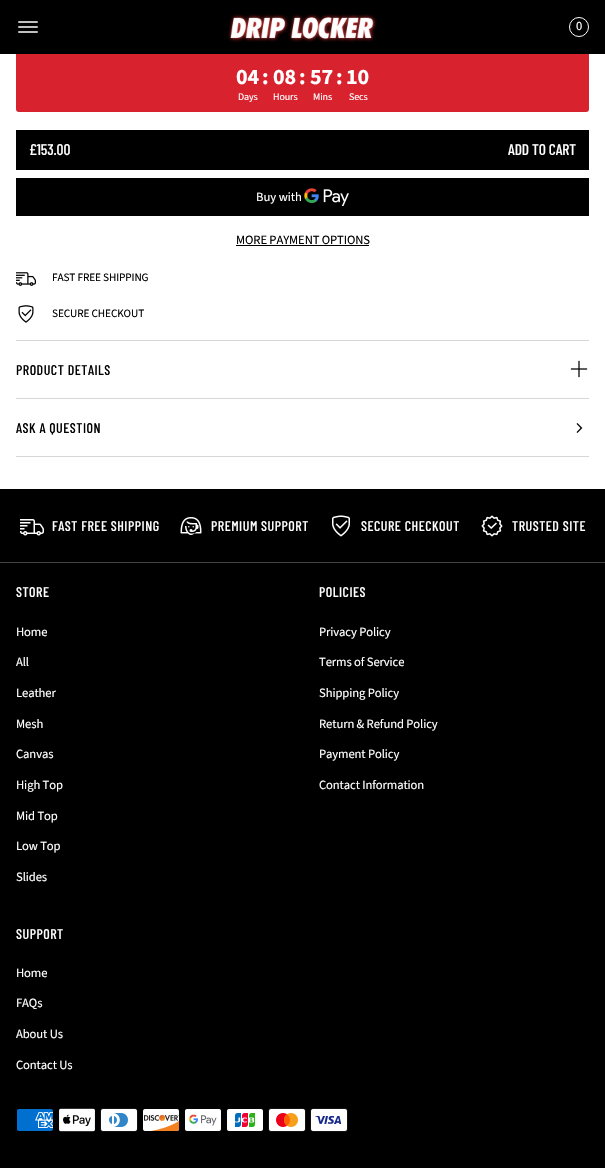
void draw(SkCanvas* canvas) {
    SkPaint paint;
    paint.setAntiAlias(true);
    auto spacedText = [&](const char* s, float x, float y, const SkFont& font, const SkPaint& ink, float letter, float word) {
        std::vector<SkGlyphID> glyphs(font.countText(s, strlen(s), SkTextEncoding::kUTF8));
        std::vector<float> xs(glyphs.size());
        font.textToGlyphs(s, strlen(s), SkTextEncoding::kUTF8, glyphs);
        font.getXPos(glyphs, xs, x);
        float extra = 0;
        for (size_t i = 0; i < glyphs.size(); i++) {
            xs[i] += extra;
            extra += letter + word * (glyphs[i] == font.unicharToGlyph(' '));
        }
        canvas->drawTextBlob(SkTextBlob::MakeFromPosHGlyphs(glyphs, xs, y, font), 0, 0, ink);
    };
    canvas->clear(0xFFFFFFFF);
    paint.setColor(0xFFD8232F);
    canvas->drawRoundRect(SkRect::MakeXYWH(16, 24, 573, 88), 3, 3, paint);
    paint.setColor(0xFF000000);
    canvas->drawRect(SkRect::MakeXYWH(0, 0, 605, 54), paint);
    canvas->drawImageRect(SkImages::DeferredFromEncodedData(SkData::MakeFromFileName("img1.png")), SkRect::MakeXYWH(18, 21, 20, 12), SkSamplingOptions());
    canvas->drawImageRect(SkImages::DeferredFromEncodedData(SkData::MakeFromFileName("img2.png")), SkRect::MakeXYWH(227, 14, 150, 29), SkSamplingOptions());
    paint.setStyle(SkPaint::kStroke_Style);
    paint.setStrokeWidth(1);
    paint.setColor(0xFFFFFFFF);
    canvas->drawCircle(579, 27, 9.5f, paint);
    SkFont font1(fontMgr->matchFamilyStyle("Source Sans Pro", SkFontStyle::Normal()), 12.6f);
    font1.setSubpixel(true);
    paint.setStyle(SkPaint::kFill_Style);
    spacedText("0", 576, 30, font1, paint, -0.1f, 0);
    SkFont font2(fontMgr->matchFamilyStyle("Source Sans Pro", SkFontStyle::Bold()), 22);
    font2.setSubpixel(true);
    spacedText("04", 236, 84, font2, paint, -0.1f, 0);
    spacedText(":", 262, 84, font2, paint, -0.1f, 0);
    spacedText("08", 273, 84, font2, paint, -0.1f, 0);
    spacedText(":", 299, 84, font2, paint, -0.1f, 0);
    spacedText("57", 310, 84, font2, paint, -0.1f, 0);
    spacedText(":", 336, 84, font2, paint, -0.1f, 0);
    spacedText("10", 346, 84, font2, paint, -0.1f, 0);
    SkFont font3(fontMgr->matchFamilyStyle("Source Sans Pro", SkFontStyle::Normal()), 10);
    font3.setSubpixel(true);
    spacedText("Days", 238, 100, font3, paint, -0.1f, 0);
    spacedText("Hours", 273, 100, font3, paint, -0.1f, 0);
    spacedText("Mins", 313, 100, font3, paint, -0.1f, 0);
    spacedText("Secs", 349, 100, font3, paint, -0.1f, 0);
    paint.setColor(0xFF000000);
    canvas->drawRect(SkRect::MakeXYWH(16, 130, 573, 40), paint);
    SkFont font4(fontMgr->matchFamilyStyle("Barlow Condensed", SkFontStyle(500, SkFontStyle::kNormal_Width, SkFontStyle::kUpright_Slant)), 15.5f);
    font4.setSubpixel(true);
    paint.setColor(0xFFFFFFFF);
    spacedText("£153.00", 29, 155, font4, paint, -0.1f, 0);
    spacedText("ADD TO CART", 508, 155, font4, paint, -0.1f, 0);
    paint.setColor(0xFF000000);
    canvas->drawRect(SkRect::MakeXYWH(16, 178, 573, 38), paint);
    paint.setColor(0xFFFFFFFF);
    canvas->drawString("Buy with", 256, 201, font1, paint);
    canvas->drawImageRect(SkImages::DeferredFromEncodedData(SkData::MakeFromFileName("img3.png")), SkRect::MakeXYWH(304, 188, 45, 18), SkSamplingOptions());
    paint.setColor(0xFF000000);
    spacedText("MORE PAYMENT OPTIONS", 236, 244, font1, paint, -0.1f, 0);
    canvas->drawRect(SkRect::MakeXYWH(236, 245, 133, 1), paint);
    canvas->drawImageRect(SkImages::DeferredFromEncodedData(SkData::MakeFromFileName("img4.png")), SkRect::MakeXYWH(16, 272, 20, 14), SkSamplingOptions());
    SkFont font5(fontMgr->matchFamilyStyle("Source Sans Pro", SkFontStyle::Normal()), 11.25f);
    font5.setSubpixel(true);
    spacedText("FAST FREE SHIPPING", 52, 281, font5, paint, -0.1f, 0);
    canvas->drawImageRect(SkImages::DeferredFromEncodedData(SkData::MakeFromFileName("img5.png")), SkRect::MakeXYWH(18, 305, 16, 18), SkSamplingOptions());
    spacedText("SECURE CHECKOUT", 52, 317, font5, paint, -0.1f, 0);
    paint.setColor(0xFFD7D7D7);
    canvas->drawRect(SkRect::MakeXYWH(16, 340, 573, 1), paint);
    canvas->drawRect(SkRect::MakeXYWH(16, 398, 573, 1), paint);
    SkFont font6(fontMgr->matchFamilyStyle("Barlow Condensed", SkFontStyle(500, SkFontStyle::kNormal_Width, SkFontStyle::kUpright_Slant)), 14);
    font6.setSubpixel(true);
    paint.setColor(0xFF000000);
    spacedText("PRODUCT DETAILS", 16, 375, font6, paint, 0.5f, 0);
    canvas->drawImageRect(SkImages::DeferredFromEncodedData(SkData::MakeFromFileName("img6.png")), SkRect::MakeXYWH(570, 360, 18, 18), SkSamplingOptions());
    paint.setColor(0xFFD7D7D7);
    canvas->drawRect(SkRect::MakeXYWH(16, 456, 573, 1), paint);
    paint.setColor(0xFF000000);
    spacedText("ASK A QUESTION", 16, 433, font6, paint, 0.5f, 0);
    canvas->drawImageRect(SkImages::DeferredFromEncodedData(SkData::MakeFromFileName("img7.png")), SkRect::MakeXYWH(576, 423, 7, 10), SkSamplingOptions());
    canvas->drawRect(SkRect::MakeXYWH(0, 489, 605, 73), paint);
    paint.setColor(0xFF434343);
    canvas->drawRect(SkRect::MakeXYWH(0, 562, 605, 1), paint);
    canvas->drawImageRect(SkImages::DeferredFromEncodedData(SkData::MakeFromFileName("img8.png")), SkRect::MakeXYWH(20, 519, 24, 17), SkSamplingOptions());
    paint.setColor(0xFFFFFFFF);
    spacedText("FAST FREE SHIPPING", 52, 531, font6, paint, 0.5f, 0);
    canvas->drawImageRect(SkImages::DeferredFromEncodedData(SkData::MakeFromFileName("img9.png")), SkRect::MakeXYWH(180, 517, 22, 18), SkSamplingOptions());
    spacedText("PREMIUM SUPPORT", 211, 531, font6, paint, 0.5f, 0);
    canvas->drawImageRect(SkImages::DeferredFromEncodedData(SkData::MakeFromFileName("img10.png")), SkRect::MakeXYWH(332, 515, 18, 22), SkSamplingOptions());
    spacedText("SECURE CHECKOUT", 361, 531, font6, paint, 0.5f, 0);
    canvas->drawImageRect(SkImages::DeferredFromEncodedData(SkData::MakeFromFileName("img11.png")), SkRect::MakeXYWH(481, 515, 22, 22), SkSamplingOptions());
    spacedText("TRUSTED SITE", 512, 531, font6, paint, 0.5f, 0);
    paint.setColor(0xFF000000);
    canvas->drawRect(SkRect::MakeXYWH(0, 563, 605, 605), paint);
    paint.setColor(0xFFFFFFFF);
    spacedText("STORE", 16, 597, font6, paint, 0.5f, 0);
    spacedText("Home", 16, 636, font1, paint, -0.1f, 0);
    spacedText("All", 16, 666, font1, paint, -0.1f, 0);
    spacedText("Leather", 16, 697, font1, paint, -0.1f, 0);
    spacedText("Mesh", 16, 728, font1, paint, -0.1f, 0);
    spacedText("Canvas", 16, 758, font1, paint, -0.1f, 0);
    spacedText("High Top", 16, 789, font1, paint, -0.1f, 0);
    spacedText("Mid Top", 16, 820, font1, paint, -0.1f, 0);
    spacedText("Low Top", 16, 850, font1, paint, -0.1f, 0);
    spacedText("Slides", 16, 881, font1, paint, -0.1f, 0);
    spacedText("POLICIES", 319, 597, font6, paint, 0.5f, 0);
    spacedText("Privacy Policy", 319, 636, font1, paint, -0.1f, 0);
    spacedText("Terms of Service", 319, 666, font1, paint, -0.1f, 0);
    spacedText("Shipping Policy", 319, 697, font1, paint, -0.1f, 0);
    spacedText("Return & Refund Policy", 319, 728, font1, paint, -0.1f, 0);
    spacedText("Payment Policy", 319, 758, font1, paint, -0.1f, 0);
    spacedText("Contact Information", 319, 789, font1, paint, -0.1f, 0);
    spacedText("SUPPORT", 16, 939, font6, paint, 0.5f, 0);
    spacedText("Home", 16, 977, font1, paint, -0.1f, 0);
    spacedText("FAQs", 16, 1007, font1, paint, -0.1f, 0);
    spacedText("About Us", 16, 1038, font1, paint, -0.1f, 0);
    spacedText("Contact Us", 16, 1069, font1, paint, -0.1f, 0);
    canvas->drawImageRect(SkImages::DeferredFromEncodedData(SkData::MakeFromFileName("img12.png")), SkRect::MakeXYWH(17, 1109, 36, 22), SkSamplingOptions());
    canvas->drawImageRect(SkImages::DeferredFromEncodedData(SkData::MakeFromFileName("img13.png")), SkRect::MakeXYWH(59, 1108, 36, 24), SkSamplingOptions());
    canvas->drawImageRect(SkImages::DeferredFromEncodedData(SkData::MakeFromFileName("img14.png")), SkRect::MakeXYWH(100, 1108, 38, 24), SkSamplingOptions());
    canvas->drawImageRect(SkImages::DeferredFromEncodedData(SkData::MakeFromFileName("img15.png")), SkRect::MakeXYWH(143, 1109, 37, 22), SkSamplingOptions());
    canvas->drawImageRect(SkImages::DeferredFromEncodedData(SkData::MakeFromFileName("img16.png")), SkRect::MakeXYWH(185, 1109, 36, 22), SkSamplingOptions());
    canvas->drawImageRect(SkImages::DeferredFromEncodedData(SkData::MakeFromFileName("img17.png")), SkRect::MakeXYWH(227, 1109, 36, 22), SkSamplingOptions());
    canvas->drawImageRect(SkImages::DeferredFromEncodedData(SkData::MakeFromFileName("img18.png")), SkRect::MakeXYWH(268, 1108, 38, 24), SkSamplingOptions());
    canvas->drawImageRect(SkImages::DeferredFromEncodedData(SkData::MakeFromFileName("img19.png")), SkRect::MakeXYWH(310, 1108, 38, 24), SkSamplingOptions());
}
